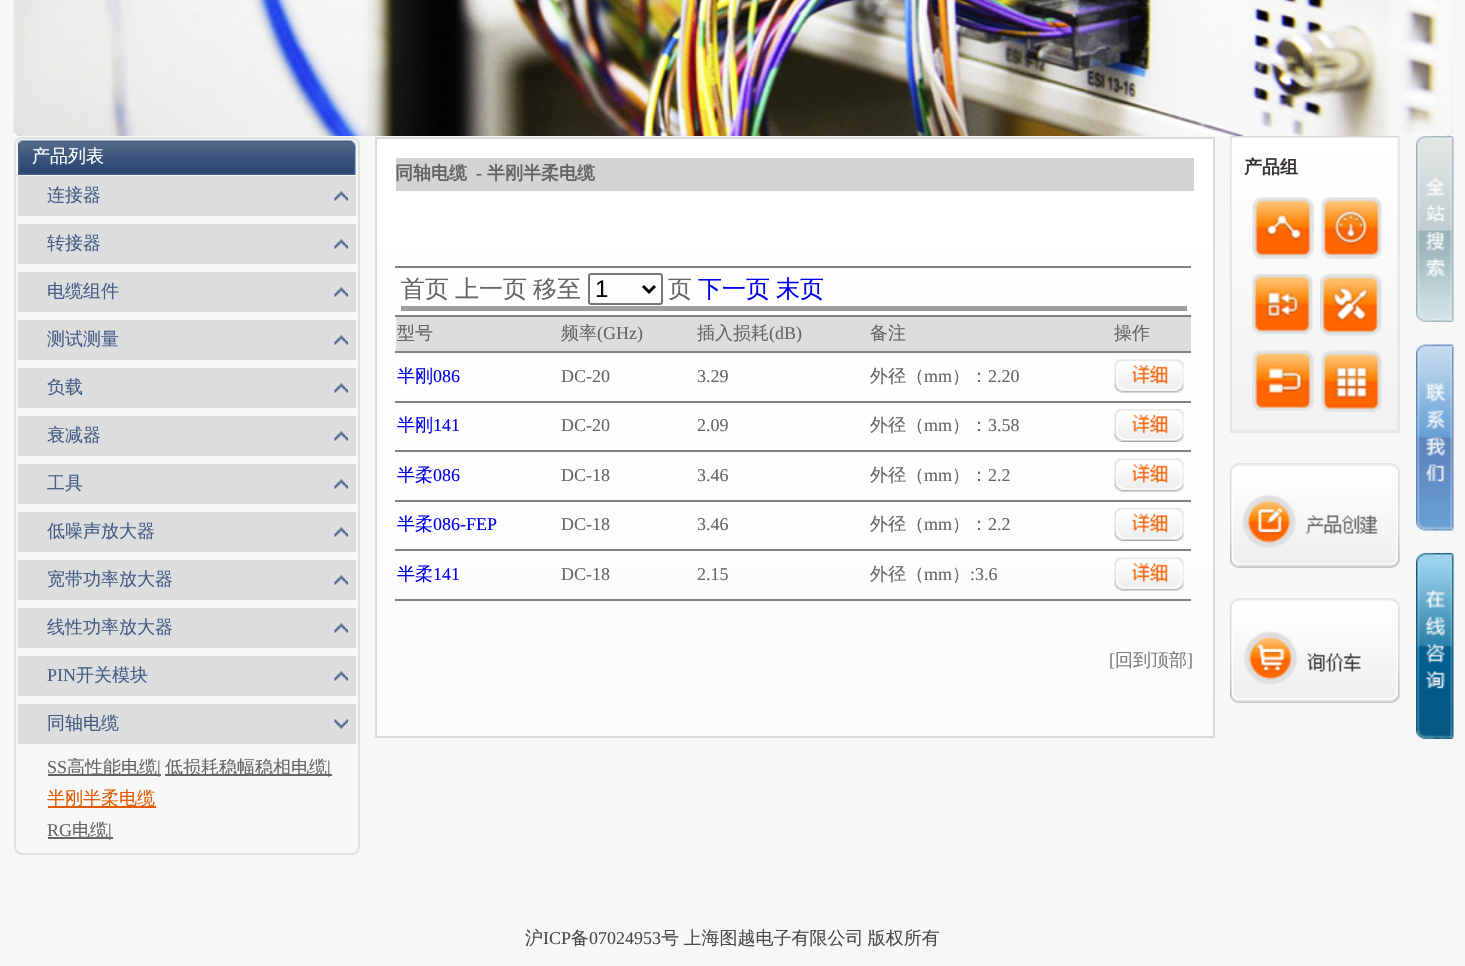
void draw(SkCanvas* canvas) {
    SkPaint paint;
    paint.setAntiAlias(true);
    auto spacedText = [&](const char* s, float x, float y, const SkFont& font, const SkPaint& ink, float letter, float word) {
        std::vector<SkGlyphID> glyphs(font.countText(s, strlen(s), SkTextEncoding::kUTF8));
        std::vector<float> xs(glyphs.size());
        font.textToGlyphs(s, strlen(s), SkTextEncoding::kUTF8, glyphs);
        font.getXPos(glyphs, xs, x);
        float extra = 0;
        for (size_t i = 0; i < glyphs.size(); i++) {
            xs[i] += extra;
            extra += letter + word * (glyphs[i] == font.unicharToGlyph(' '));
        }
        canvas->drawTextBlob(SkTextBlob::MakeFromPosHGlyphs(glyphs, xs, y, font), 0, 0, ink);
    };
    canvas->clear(0xFFF7F7F7);
    canvas->drawImageRect(SkImages::DeferredFromEncodedData(SkData::MakeFromFileName("img1.png")), SkRect::MakeXYWH(13, 0, 1441, 136), SkSamplingOptions());
    paint.setStyle(SkPaint::kStroke_Style);
    paint.setStrokeWidth(2);
    paint.setColor(0xFFDFE0E0);
    canvas->drawRoundRect(SkRect::MakeXYWH(15, 138, 344, 716), 7, 7, paint);
    canvas->drawImageRect(SkImages::DeferredFromEncodedData(SkData::MakeFromFileName("img2.png")), SkRect::MakeXYWH(18, 140, 338, 35), SkSamplingOptions());
    SkFont font1(fontMgr->matchFamilyStyle("WenQuanYi Zen Hei", SkFontStyle(500, SkFontStyle::kNormal_Width, SkFontStyle::kUpright_Slant)), 18);
    font1.setSubpixel(true);
    paint.setStyle(SkPaint::kFill_Style);
    paint.setColor(0xFFFFFFFF);
    canvas->drawString("产品列表", 32, 162, font1, paint);
    paint.setColor(0xFFDDDDDE);
    canvas->drawRect(SkRect::MakeXYWH(18, 176, 338, 40), paint);
    paint.setColor(0xFF455C85);
    canvas->drawString("连接器", 47, 201, font1, paint);
    canvas->drawImageRect(SkImages::DeferredFromEncodedData(SkData::MakeFromFileName("img3.png")), SkRect::MakeXYWH(334, 191, 14, 10), SkSamplingOptions());
    paint.setColor(0xFFDDDDDE);
    canvas->drawRect(SkRect::MakeXYWH(18, 224, 338, 40), paint);
    paint.setColor(0xFF455C85);
    canvas->drawString("转接器", 47, 249, font1, paint);
    canvas->drawImageRect(SkImages::DeferredFromEncodedData(SkData::MakeFromFileName("img3.png")), SkRect::MakeXYWH(334, 239, 14, 10), SkSamplingOptions());
    paint.setColor(0xFFDDDDDE);
    canvas->drawRect(SkRect::MakeXYWH(18, 272, 338, 40), paint);
    paint.setColor(0xFF455C85);
    canvas->drawString("电缆组件", 47, 297, font1, paint);
    canvas->drawImageRect(SkImages::DeferredFromEncodedData(SkData::MakeFromFileName("img3.png")), SkRect::MakeXYWH(334, 287, 14, 10), SkSamplingOptions());
    paint.setColor(0xFFDDDDDE);
    canvas->drawRect(SkRect::MakeXYWH(18, 320, 338, 40), paint);
    paint.setColor(0xFF455C85);
    canvas->drawString("测试测量", 47, 345, font1, paint);
    canvas->drawImageRect(SkImages::DeferredFromEncodedData(SkData::MakeFromFileName("img3.png")), SkRect::MakeXYWH(334, 335, 14, 10), SkSamplingOptions());
    paint.setColor(0xFFDDDDDE);
    canvas->drawRect(SkRect::MakeXYWH(18, 368, 338, 40), paint);
    paint.setColor(0xFF455C85);
    canvas->drawString("负载", 47, 393, font1, paint);
    canvas->drawImageRect(SkImages::DeferredFromEncodedData(SkData::MakeFromFileName("img3.png")), SkRect::MakeXYWH(334, 383, 14, 10), SkSamplingOptions());
    paint.setColor(0xFFDDDDDE);
    canvas->drawRect(SkRect::MakeXYWH(18, 416, 338, 40), paint);
    paint.setColor(0xFF455C85);
    canvas->drawString("衰减器", 47, 441, font1, paint);
    canvas->drawImageRect(SkImages::DeferredFromEncodedData(SkData::MakeFromFileName("img3.png")), SkRect::MakeXYWH(334, 431, 14, 10), SkSamplingOptions());
    paint.setColor(0xFFDDDDDE);
    canvas->drawRect(SkRect::MakeXYWH(18, 464, 338, 40), paint);
    paint.setColor(0xFF455C85);
    canvas->drawString("工具", 47, 489, font1, paint);
    canvas->drawImageRect(SkImages::DeferredFromEncodedData(SkData::MakeFromFileName("img3.png")), SkRect::MakeXYWH(334, 479, 14, 10), SkSamplingOptions());
    paint.setColor(0xFFDDDDDE);
    canvas->drawRect(SkRect::MakeXYWH(18, 512, 338, 40), paint);
    paint.setColor(0xFF455C85);
    canvas->drawString("低噪声放大器", 47, 537, font1, paint);
    canvas->drawImageRect(SkImages::DeferredFromEncodedData(SkData::MakeFromFileName("img3.png")), SkRect::MakeXYWH(334, 527, 14, 10), SkSamplingOptions());
    paint.setColor(0xFFDDDDDE);
    canvas->drawRect(SkRect::MakeXYWH(18, 560, 338, 40), paint);
    paint.setColor(0xFF455C85);
    canvas->drawString("宽带功率放大器", 47, 585, font1, paint);
    canvas->drawImageRect(SkImages::DeferredFromEncodedData(SkData::MakeFromFileName("img3.png")), SkRect::MakeXYWH(334, 575, 14, 10), SkSamplingOptions());
    paint.setColor(0xFFDDDDDE);
    canvas->drawRect(SkRect::MakeXYWH(18, 608, 338, 40), paint);
    paint.setColor(0xFF455C85);
    canvas->drawString("线性功率放大器", 47, 633, font1, paint);
    canvas->drawImageRect(SkImages::DeferredFromEncodedData(SkData::MakeFromFileName("img3.png")), SkRect::MakeXYWH(334, 623, 14, 10), SkSamplingOptions());
    paint.setColor(0xFFDDDDDE);
    canvas->drawRect(SkRect::MakeXYWH(18, 656, 338, 40), paint);
    SkFont font2(fontMgr->matchFamilyStyle("Liberation Serif", SkFontStyle::Normal()), 18);
    font2.setSubpixel(true);
    paint.setColor(0xFF455C85);
    canvas->drawString("PIN", 47, 681, font2, paint);
    canvas->drawString("开关模块", 76, 681, font1, paint);
    canvas->drawImageRect(SkImages::DeferredFromEncodedData(SkData::MakeFromFileName("img3.png")), SkRect::MakeXYWH(334, 671, 14, 10), SkSamplingOptions());
    paint.setColor(0xFFDDDDDE);
    canvas->drawRect(SkRect::MakeXYWH(18, 704, 338, 40), paint);
    paint.setColor(0xFF455C85);
    canvas->drawString("同轴电缆", 47, 729, font1, paint);
    canvas->drawImageRect(SkImages::DeferredFromEncodedData(SkData::MakeFromFileName("img4.png")), SkRect::MakeXYWH(334, 719, 14, 10), SkSamplingOptions());
    paint.setColor(0xFF666464);
    canvas->drawString("SS", 47, 773, font2, paint);
    canvas->drawRect(SkRect::MakeXYWH(48, 774, 113, 2), paint);
    canvas->drawString("高性能电缆", 67, 773, font1, paint);
    canvas->drawString("|", 157, 773, font2, paint);
    canvas->drawRect(SkRect::MakeXYWH(165, 774, 167, 2), paint);
    canvas->drawString("低损耗稳幅稳相电缆", 165, 773, font1, paint);
    canvas->drawString("|", 327, 773, font2, paint);
    paint.setColor(0xFFE25B01);
    canvas->drawRect(SkRect::MakeXYWH(48, 806, 108, 2), paint);
    canvas->drawString("半刚半柔电缆", 47, 804, font1, paint);
    paint.setColor(0xFF666464);
    canvas->drawString("RG", 47, 836, font2, paint);
    canvas->drawRect(SkRect::MakeXYWH(48, 837, 65, 2), paint);
    canvas->drawString("电缆", 72, 836, font1, paint);
    canvas->drawString("|", 108, 836, font2, paint);
    canvas->drawImageRect(SkImages::DeferredFromEncodedData(SkData::MakeFromFileName("img5.png")), SkRect::MakeXYWH(377, 139, 836, 597), SkSamplingOptions());
    paint.setStyle(SkPaint::kStroke_Style);
    paint.setColor(0xFFD9D9D9);
    canvas->drawRect(SkRect::MakeXYWH(376, 138, 838, 599), paint);
    paint.setStyle(SkPaint::kFill_Style);
    paint.setColor(0xFFD3D3D4);
    canvas->drawRect(SkRect::MakeXYWH(396, 158, 798, 33), paint);
    SkFont font3(fontMgr->matchFamilyStyle("WenQuanYi Zen Hei", SkFontStyle::Bold()), 18);
    font3.setSubpixel(true);
    paint.setColor(0xFF666464);
    canvas->drawString("同轴电缆", 395, 179, font3, paint);
    SkFont font4(fontMgr->matchFamilyStyle("Liberation Serif", SkFontStyle::Bold()), 18);
    font4.setSubpixel(true);
    canvas->drawString("-", 476, 179, font4, paint);
    canvas->drawString("半刚半柔电缆", 487, 179, font3, paint);
    paint.setColor(0xFF808080);
    canvas->drawRect(SkRect::MakeXYWH(395, 266, 796, 2), paint);
    paint.setColor(0xFF9F9F9F);
    canvas->drawRect(SkRect::MakeXYWH(401, 306, 786, 5), paint);
    SkFont font5(fontMgr->matchFamilyStyle("WenQuanYi Zen Hei", SkFontStyle(500, SkFontStyle::kNormal_Width, SkFontStyle::kUpright_Slant)), 24);
    font5.setSubpixel(true);
    paint.setColor(0xFF666464);
    canvas->drawString("首页", 401, 297, font5, paint);
    canvas->drawString("上一页", 455, 297, font5, paint);
    canvas->drawString("移至", 533, 297, font5, paint);
    paint.setStyle(SkPaint::kStroke_Style);
    paint.setColor(0xFF767676);
    canvas->drawRoundRect(SkRect::MakeXYWH(589, 274, 73, 30), 2, 2, paint);
    paint.setStrokeWidth(3);
    paint.setColor(0xFF000000);
    canvas->drawPath(SkPathBuilder().moveTo(643, 286).lineTo(649, 292).lineTo(655, 286).detach(), paint);
    SkFont font6(fontMgr->matchFamilyStyle("Liberation Sans", SkFontStyle::Normal()), 24);
    font6.setSubpixel(true);
    paint.setStyle(SkPaint::kFill_Style);
    canvas->drawString("1", 595, 297, font6, paint);
    paint.setColor(0xFF666464);
    canvas->drawString("页", 668, 297, font5, paint);
    paint.setColor(0xFF0000EE);
    canvas->drawString("下一页", 698, 297, font5, paint);
    canvas->drawString("末页", 776, 297, font5, paint);
    paint.setColor(0xFFDDDDDD);
    canvas->drawRect(SkRect::MakeXYWH(396, 317, 795, 34), paint);
    paint.setColor(0xFF666464);
    canvas->drawString("型号", 397, 339, font1, paint);
    canvas->drawString("频率", 561, 339, font1, paint);
    canvas->drawString("(GHz)", 597, 339, font2, paint);
    canvas->drawString("插入损耗", 697, 339, font1, paint);
    canvas->drawString("(dB)", 769, 339, font2, paint);
    canvas->drawString("备注", 870, 339, font1, paint);
    paint.setColor(0xFF808080);
    canvas->drawRect(SkRect::MakeXYWH(395, 315, 796, 2), paint);
    paint.setColor(0xFF666464);
    canvas->drawString("操作", 1114, 339, font1, paint);
    paint.setColor(0xFF808080);
    canvas->drawRect(SkRect::MakeXYWH(395, 351, 796, 2), paint);
    canvas->drawImageRect(SkImages::DeferredFromEncodedData(SkData::MakeFromFileName("img6.png")), SkRect::MakeXYWH(1114, 359, 70, 34), SkSamplingOptions());
    paint.setColor(0xFF0000EE);
    canvas->drawString("半刚", 397, 382, font1, paint);
    canvas->drawString("086", 433, 382, font2, paint);
    paint.setColor(0xFF666464);
    canvas->drawString("DC-20", 561, 382, font2, paint);
    canvas->drawString("3.29", 697, 382, font2, paint);
    canvas->drawString("外径（", 870, 382, font1, paint);
    canvas->drawString("mm", 924, 382, font2, paint);
    canvas->drawString("）：", 952, 382, font1, paint);
    canvas->drawString("2.20", 988, 382, font2, paint);
    paint.setColor(0xFF808080);
    canvas->drawRect(SkRect::MakeXYWH(395, 401, 796, 2), paint);
    canvas->drawImageRect(SkImages::DeferredFromEncodedData(SkData::MakeFromFileName("img7.png")), SkRect::MakeXYWH(1114, 409, 70, 33), SkSamplingOptions());
    paint.setColor(0xFF0000EE);
    canvas->drawString("半刚", 397, 431, font1, paint);
    canvas->drawString("141", 433, 431, font2, paint);
    paint.setColor(0xFF666464);
    canvas->drawString("DC-20", 561, 431, font2, paint);
    canvas->drawString("2.09", 697, 431, font2, paint);
    canvas->drawString("外径（", 870, 431, font1, paint);
    canvas->drawString("mm", 924, 431, font2, paint);
    canvas->drawString("）：", 952, 431, font1, paint);
    canvas->drawString("3.58", 988, 431, font2, paint);
    paint.setColor(0xFF808080);
    canvas->drawRect(SkRect::MakeXYWH(395, 450, 796, 2), paint);
    canvas->drawImageRect(SkImages::DeferredFromEncodedData(SkData::MakeFromFileName("img8.png")), SkRect::MakeXYWH(1114, 458, 70, 34), SkSamplingOptions());
    paint.setColor(0xFF0000EE);
    canvas->drawString("半柔", 397, 481, font1, paint);
    canvas->drawString("086", 433, 481, font2, paint);
    paint.setColor(0xFF666464);
    canvas->drawString("DC-18", 561, 481, font2, paint);
    canvas->drawString("3.46", 697, 481, font2, paint);
    canvas->drawString("外径（", 870, 481, font1, paint);
    canvas->drawString("mm", 924, 481, font2, paint);
    canvas->drawString("）：", 952, 481, font1, paint);
    canvas->drawString("2.2", 988, 481, font2, paint);
    paint.setColor(0xFF808080);
    canvas->drawRect(SkRect::MakeXYWH(395, 500, 796, 2), paint);
    canvas->drawImageRect(SkImages::DeferredFromEncodedData(SkData::MakeFromFileName("img7.png")), SkRect::MakeXYWH(1114, 508, 70, 33), SkSamplingOptions());
    paint.setColor(0xFF0000EE);
    canvas->drawString("半柔", 397, 530, font1, paint);
    canvas->drawString("086-FEP", 433, 530, font2, paint);
    paint.setColor(0xFF666464);
    canvas->drawString("DC-18", 561, 530, font2, paint);
    canvas->drawString("3.46", 697, 530, font2, paint);
    canvas->drawString("外径（", 870, 530, font1, paint);
    canvas->drawString("mm", 924, 530, font2, paint);
    canvas->drawString("）：", 952, 530, font1, paint);
    canvas->drawString("2.2", 988, 530, font2, paint);
    paint.setColor(0xFF808080);
    canvas->drawRect(SkRect::MakeXYWH(395, 549, 796, 2), paint);
    canvas->drawRect(SkRect::MakeXYWH(395, 599, 796, 2), paint);
    canvas->drawImageRect(SkImages::DeferredFromEncodedData(SkData::MakeFromFileName("img9.png")), SkRect::MakeXYWH(1114, 557, 70, 34), SkSamplingOptions());
    paint.setColor(0xFF0000EE);
    canvas->drawString("半柔", 397, 580, font1, paint);
    canvas->drawString("141", 433, 580, font2, paint);
    paint.setColor(0xFF666464);
    canvas->drawString("DC-18", 561, 580, font2, paint);
    canvas->drawString("2.15", 697, 580, font2, paint);
    canvas->drawString("外径（", 870, 580, font1, paint);
    canvas->drawString("mm", 924, 580, font2, paint);
    canvas->drawString("）", 952, 580, font1, paint);
    canvas->drawString(":3.6", 970, 580, font2, paint);
    paint.setColor(0xFF7D7D7D);
    canvas->drawString("[", 1109, 666, font2, paint);
    canvas->drawString("回到顶部", 1115, 666, font1, paint);
    canvas->drawString("]", 1187, 666, font2, paint);
    canvas->drawImageRect(SkImages::DeferredFromEncodedData(SkData::MakeFromFileName("img10.png")), SkRect::MakeXYWH(1230, 136, 170, 297), SkSamplingOptions());
    paint.setColor(0xFF353130);
    canvas->drawString("产品组", 1244, 173, font3, paint);
    canvas->drawImageRect(SkImages::DeferredFromEncodedData(SkData::MakeFromFileName("img11.png")), SkRect::MakeXYWH(1252, 197, 62, 62), SkSamplingOptions());
    canvas->drawImageRect(SkImages::DeferredFromEncodedData(SkData::MakeFromFileName("img12.png")), SkRect::MakeXYWH(1321, 197, 61, 62), SkSamplingOptions());
    canvas->drawImageRect(SkImages::DeferredFromEncodedData(SkData::MakeFromFileName("img13.png")), SkRect::MakeXYWH(1252, 274, 61, 60), SkSamplingOptions());
    canvas->drawImageRect(SkImages::DeferredFromEncodedData(SkData::MakeFromFileName("img14.png")), SkRect::MakeXYWH(1320, 274, 62, 62), SkSamplingOptions());
    canvas->drawImageRect(SkImages::DeferredFromEncodedData(SkData::MakeFromFileName("img15.png")), SkRect::MakeXYWH(1252, 350, 62, 61), SkSamplingOptions());
    canvas->drawImageRect(SkImages::DeferredFromEncodedData(SkData::MakeFromFileName("img16.png")), SkRect::MakeXYWH(1321, 350, 61, 62), SkSamplingOptions());
    canvas->drawImageRect(SkImages::DeferredFromEncodedData(SkData::MakeFromFileName("img17.png")), SkRect::MakeXYWH(1230, 463, 170, 105), SkSamplingOptions());
    canvas->drawImageRect(SkImages::DeferredFromEncodedData(SkData::MakeFromFileName("img18.png")), SkRect::MakeXYWH(1242, 494, 136, 54), SkSamplingOptions());
    canvas->drawImageRect(SkImages::DeferredFromEncodedData(SkData::MakeFromFileName("img17.png")), SkRect::MakeXYWH(1230, 598, 170, 105), SkSamplingOptions());
    canvas->drawImageRect(SkImages::DeferredFromEncodedData(SkData::MakeFromFileName("img19.png")), SkRect::MakeXYWH(1243, 631, 118, 54), SkSamplingOptions());
    canvas->drawImageRect(SkImages::DeferredFromEncodedData(SkData::MakeFromFileName("img20.png")), SkRect::MakeXYWH(1416, 136, 38, 186), SkSamplingOptions());
    canvas->drawImageRect(SkImages::DeferredFromEncodedData(SkData::MakeFromFileName("img21.png")), SkRect::MakeXYWH(1416, 344, 38, 187), SkSamplingOptions());
    canvas->drawImageRect(SkImages::DeferredFromEncodedData(SkData::MakeFromFileName("img22.png")), SkRect::MakeXYWH(1416, 553, 38, 186), SkSamplingOptions());
    paint.setColor(0xFF4C4948);
    canvas->drawString("沪", 525, 944, font1, paint);
    canvas->drawString("ICP", 543, 944, font2, paint);
    canvas->drawString("备", 571, 944, font1, paint);
    canvas->drawString("07024953", 589, 944, font2, paint);
    spacedText("号 上海图越电子有限公司 版权所有", 661, 944, font1, paint, 0, -1);
}
